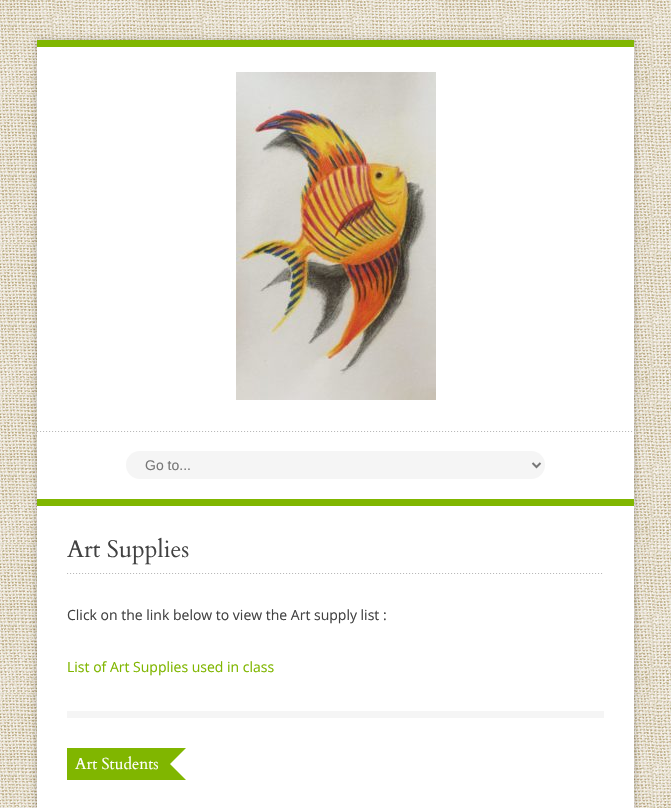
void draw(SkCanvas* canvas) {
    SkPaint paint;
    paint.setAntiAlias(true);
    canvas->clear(0xFFFFFFFF);
    canvas->drawImageRect(SkImages::DeferredFromEncodedData(SkData::MakeFromFileName("img1.png")), SkRect::MakeXYWH(0, 0, 671, 808), SkSamplingOptions());
    paint.setColor(0x33000000);
    paint.setMaskFilter(SkMaskFilter::MakeBlur(kNormal_SkBlurStyle, 3));
    canvas->drawRect(SkRect::MakeXYWH(36, 40, 599, 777), paint);
    paint.setMaskFilter(nullptr);
    paint.setColor(0xFFFFFFFF);
    canvas->drawRect(SkRect::MakeXYWH(37, 47, 597, 761), paint);
    paint.setColor(0xFF80B600);
    canvas->drawRect(SkRect::MakeXYWH(37, 40, 597, 7), paint);
    canvas->drawImageRect(SkImages::DeferredFromEncodedData(SkData::MakeFromFileName("img2.png")), SkRect::MakeXYWH(236, 72, 200, 328), SkSamplingOptions());
    canvas->drawImageRect(SkImages::DeferredFromEncodedData(SkData::MakeFromFileName("img3.png")), SkRect::MakeXYWH(37, 431, 596, 1), SkSamplingOptions());
    canvas->drawRect(SkRect::MakeXYWH(37, 499, 597, 7), paint);
    paint.setColor(0xFFF5F5F5);
    canvas->drawRoundRect(SkRect::MakeXYWH(126, 451, 419, 28), 14, 14, paint);
    paint.setStyle(SkPaint::kStroke_Style);
    paint.setStrokeWidth(2);
    paint.setColor(0xFF777777);
    canvas->drawPath(SkPathBuilder().moveTo(532.5f, 463).lineTo(536.5f, 467).lineTo(540.5f, 463).detach(), paint);
    SkFont font1(fontMgr->matchFamilyStyle("Liberation Sans", SkFontStyle::Normal()), 14);
    font1.setSubpixel(true);
    paint.setStyle(SkPaint::kFill_Style);
    canvas->drawString("Go to...", 145, 470, font1, paint);
    canvas->drawImageRect(SkImages::DeferredFromEncodedData(SkData::MakeFromFileName("img4.png")), SkRect::MakeXYWH(67, 573, 536, 1), SkSamplingOptions());
    SkFont font2(fontMgr->matchFamilyStyle("Cardo", SkFontStyle::Normal()), 24);
    font2.setSubpixel(true);
    paint.setColor(0xFF424242);
    canvas->drawString("Art Supplies", 67, 557, font2, paint);
    SkFont font3(fontMgr->matchFamilyStyle("Open Sans", SkFontStyle::Normal()), 14);
    font3.setSubpixel(true);
    canvas->drawString("Click on the link below to view the Art supply list :", 67, 620, font3, paint);
    paint.setColor(0xFF80B600);
    canvas->drawString("List of Art Supplies used in class", 67, 672, font3, paint);
    paint.setColor(0xFFF5F5F5);
    canvas->drawRect(SkRect::MakeXYWH(67, 711, 537, 7), paint);
    paint.setColor(0xFF80B600);
    canvas->drawRect(SkRect::MakeXYWH(67, 748, 102, 32), paint);
    SkFont font4(fontMgr->matchFamilyStyle("Cardo", SkFontStyle::Normal()), 16);
    font4.setSubpixel(true);
    paint.setColor(0xFFFFFFFF);
    canvas->drawString("Art Students", 75, 769, font4, paint);
    paint.setColor(0xFF80B600);
    canvas->drawPath(SkPathBuilder().moveTo(153, 748).lineTo(186, 748).lineTo(170, 764).lineTo(169, 764).close().moveTo(186, 780).lineTo(153, 780).lineTo(169, 764).lineTo(170, 764).close().detach(), paint);
}
